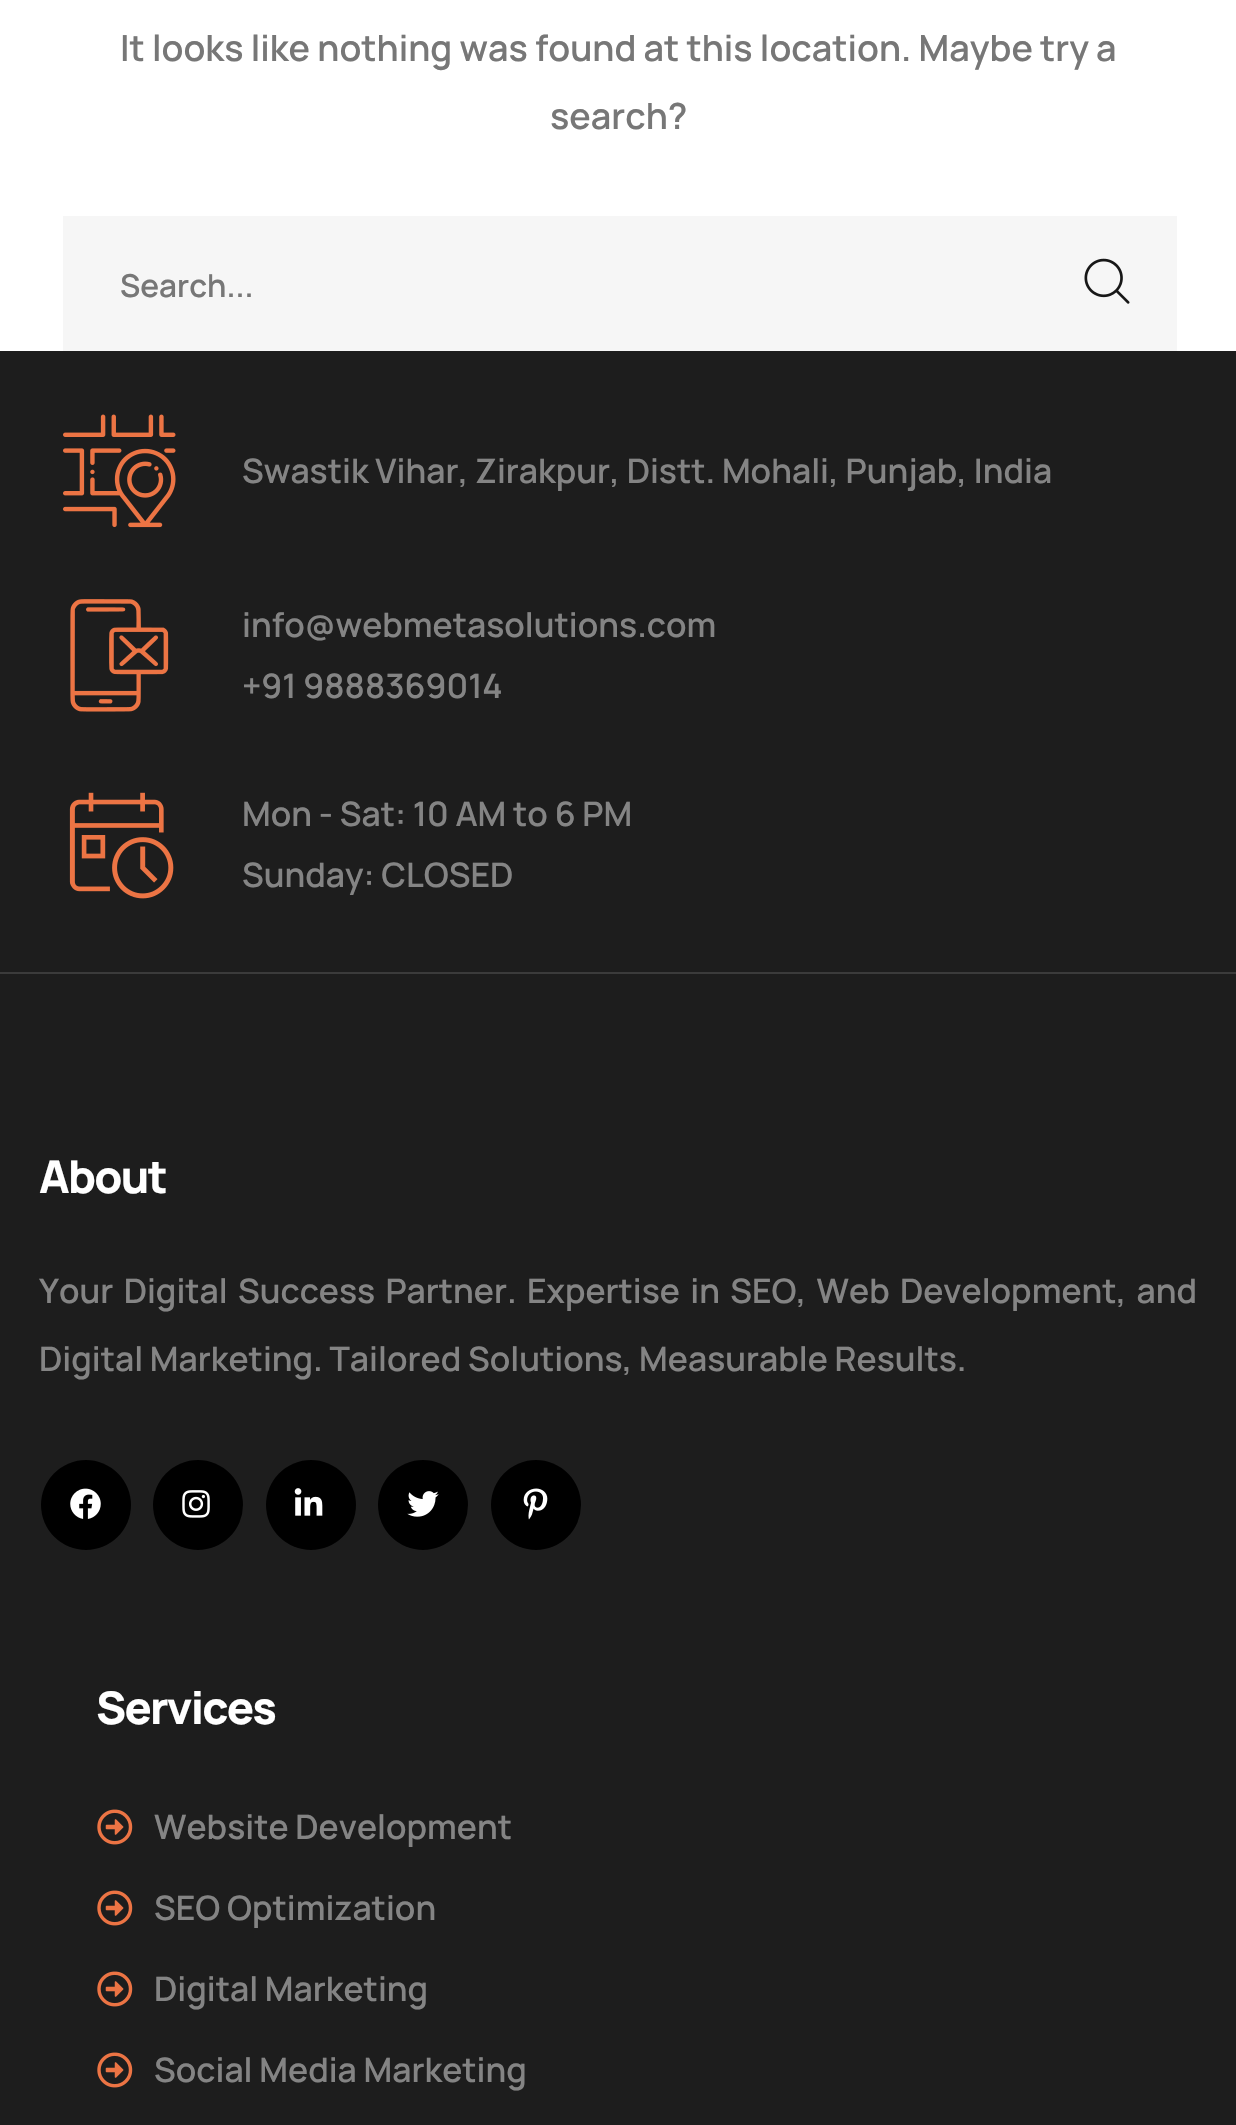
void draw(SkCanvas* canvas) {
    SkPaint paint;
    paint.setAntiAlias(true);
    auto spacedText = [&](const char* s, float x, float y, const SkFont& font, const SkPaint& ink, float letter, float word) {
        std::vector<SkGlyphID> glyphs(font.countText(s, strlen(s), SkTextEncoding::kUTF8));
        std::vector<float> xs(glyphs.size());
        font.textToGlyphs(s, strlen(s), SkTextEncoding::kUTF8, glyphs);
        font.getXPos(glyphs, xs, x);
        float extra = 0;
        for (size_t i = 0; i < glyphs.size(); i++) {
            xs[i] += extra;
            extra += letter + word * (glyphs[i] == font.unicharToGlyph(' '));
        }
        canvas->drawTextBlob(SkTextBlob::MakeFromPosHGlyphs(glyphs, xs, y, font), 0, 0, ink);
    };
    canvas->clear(0xFFFFFFFF);
    SkFont font1(fontMgr->matchFamilyStyle("Manrope", SkFontStyle(600, SkFontStyle::kNormal_Width, SkFontStyle::kUpright_Slant)), 36);
    font1.setSubpixel(true);
    paint.setColor(0xFF777777);
    canvas->drawString("It looks like nothing was found at this location. Maybe try a", 120, 61, font1, paint);
    canvas->drawString("search?", 550, 129, font1, paint);
    paint.setColor(0xFFF6F6F6);
    canvas->drawRect(SkRect::MakeXYWH(63, 216, 1114, 135), paint);
    SkFont font2(fontMgr->matchFamilyStyle("Manrope", SkFontStyle(600, SkFontStyle::kNormal_Width, SkFontStyle::kUpright_Slant)), 31.5f);
    font2.setSubpixel(true);
    paint.setColor(0xFF777777);
    canvas->drawString("Search...", 120, 297, font2, paint);
    canvas->drawImageRect(SkImages::DeferredFromEncodedData(SkData::MakeFromFileName("img1.png")), SkRect::MakeXYWH(1084, 258, 46, 46), SkSamplingOptions());
    paint.setColor(0xFF1D1D1D);
    canvas->drawRect(SkRect::MakeXYWH(0, 351, 1236, 1774), paint);
    canvas->drawImageRect(SkImages::DeferredFromEncodedData(SkData::MakeFromFileName("img2.png")), SkRect::MakeXYWH(63, 414, 113, 114), SkSamplingOptions());
    SkFont font3(fontMgr->matchFamilyStyle("Manrope", SkFontStyle(600, SkFontStyle::kNormal_Width, SkFontStyle::kUpright_Slant)), 33.75f);
    font3.setSubpixel(true);
    paint.setColor(0xFF848484);
    canvas->drawString("Swastik Vihar, Zirakpur, Distt. Mohali, Punjab, India", 242, 483, font3, paint);
    canvas->drawImageRect(SkImages::DeferredFromEncodedData(SkData::MakeFromFileName("img3.png")), SkRect::MakeXYWH(70, 599, 99, 113), SkSamplingOptions());
    canvas->drawString("info@webmetasolutions.com", 242, 637, font3, paint);
    canvas->drawString("+91 9888369014", 242, 698, font3, paint);
    canvas->drawImageRect(SkImages::DeferredFromEncodedData(SkData::MakeFromFileName("img4.png")), SkRect::MakeXYWH(69, 792, 105, 107), SkSamplingOptions());
    canvas->drawString("Mon - Sat: 10 AM to 6 PM", 242, 826, font3, paint);
    canvas->drawString("Sunday: CLOSED", 242, 887, font3, paint);
    paint.setColor(0xFF3B3B3B);
    canvas->drawRect(SkRect::MakeXYWH(0, 972, 1236, 2), paint);
    SkFont font4(fontMgr->matchFamilyStyle("Manrope", SkFontStyle(800, SkFontStyle::kNormal_Width, SkFontStyle::kUpright_Slant)), 45);
    font4.setSubpixel(true);
    paint.setColor(0xFFFFFFFF);
    spacedText("About", 39, 1193, font4, paint, -1.75f, 0);
    paint.setColor(0xFF848484);
    spacedText("Your Digital Success Partner. Expertise in SEO, Web Development, and", 39, 1303, font3, paint, 0, 3.5f);
    canvas->drawString("Digital Marketing. Tailored Solutions, Measurable Results.", 39, 1371, font3, paint);
    paint.setColor(0xFF000000);
    canvas->drawCircle(86, 1505, 45, paint);
    canvas->drawImageRect(SkImages::DeferredFromEncodedData(SkData::MakeFromFileName("img5.png")), SkRect::MakeXYWH(70, 1488, 31, 31), SkSamplingOptions());
    canvas->drawCircle(198, 1505, 45, paint);
    canvas->drawImageRect(SkImages::DeferredFromEncodedData(SkData::MakeFromFileName("img6.png")), SkRect::MakeXYWH(182, 1490, 28, 28), SkSamplingOptions());
    canvas->drawCircle(311, 1505, 45, paint);
    canvas->drawImageRect(SkImages::DeferredFromEncodedData(SkData::MakeFromFileName("img7.png")), SkRect::MakeXYWH(294, 1488, 29, 28), SkSamplingOptions());
    canvas->drawCircle(423, 1505, 45, paint);
    canvas->drawImageRect(SkImages::DeferredFromEncodedData(SkData::MakeFromFileName("img8.png")), SkRect::MakeXYWH(407, 1491, 32, 26), SkSamplingOptions());
    canvas->drawCircle(536, 1505, 45, paint);
    canvas->drawImageRect(SkImages::DeferredFromEncodedData(SkData::MakeFromFileName("img9.png")), SkRect::MakeXYWH(523, 1488, 25, 32), SkSamplingOptions());
    paint.setColor(0xFFFFFFFF);
    spacedText("Services", 96, 1724, font4, paint, -1.75f, 0);
    canvas->drawImageRect(SkImages::DeferredFromEncodedData(SkData::MakeFromFileName("img10.png")), SkRect::MakeXYWH(97, 1809, 36, 36), SkSamplingOptions());
    paint.setColor(0xFF848484);
    canvas->drawString("Website Development", 154, 1839, font3, paint);
    canvas->drawImageRect(SkImages::DeferredFromEncodedData(SkData::MakeFromFileName("img10.png")), SkRect::MakeXYWH(97, 1890, 36, 36), SkSamplingOptions());
    canvas->drawString("SEO Optimization", 154, 1920, font3, paint);
    canvas->drawImageRect(SkImages::DeferredFromEncodedData(SkData::MakeFromFileName("img10.png")), SkRect::MakeXYWH(97, 1971, 36, 36), SkSamplingOptions());
    canvas->drawString("Digital Marketing", 154, 2001, font3, paint);
    canvas->drawImageRect(SkImages::DeferredFromEncodedData(SkData::MakeFromFileName("img10.png")), SkRect::MakeXYWH(97, 2052, 36, 36), SkSamplingOptions());
    canvas->drawString("Social Media Marketing", 154, 2082, font3, paint);
}
